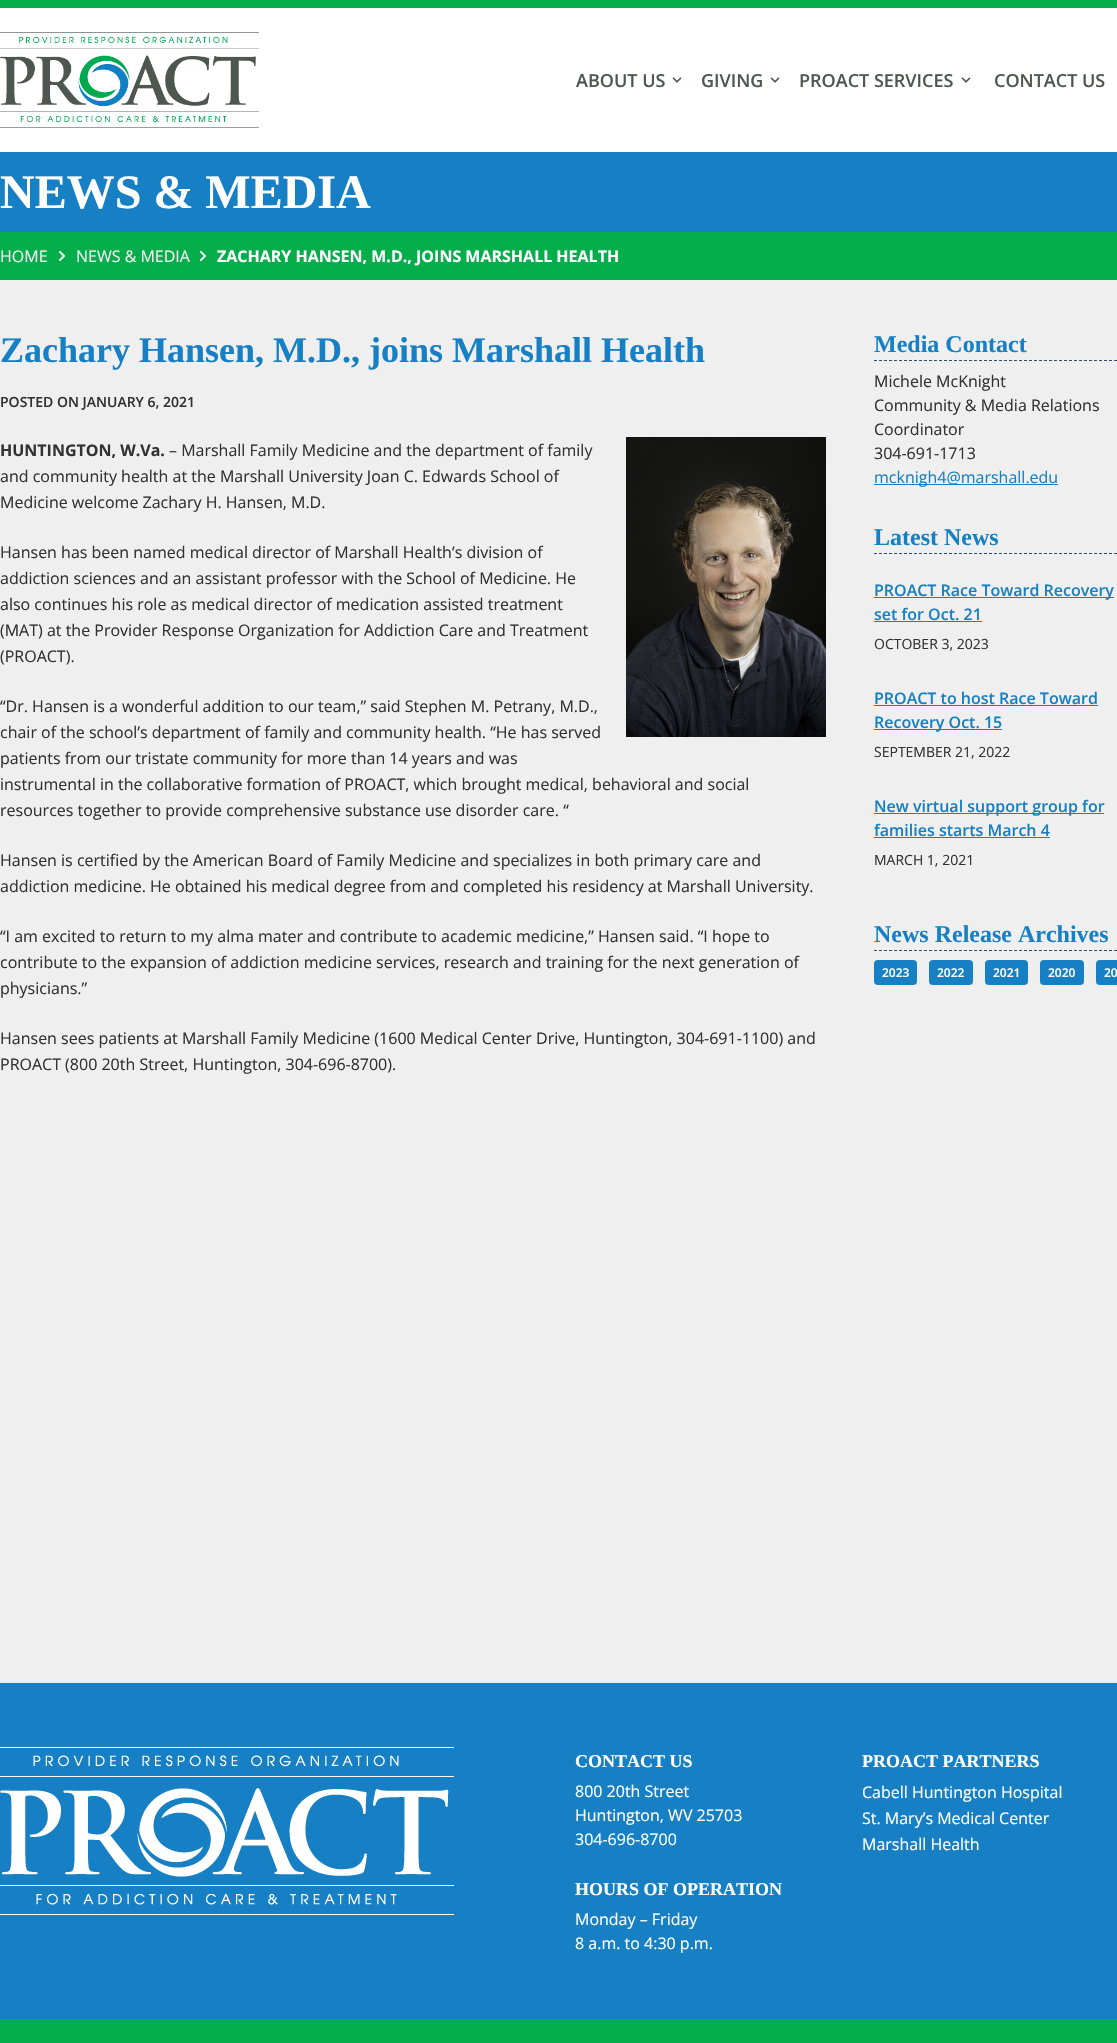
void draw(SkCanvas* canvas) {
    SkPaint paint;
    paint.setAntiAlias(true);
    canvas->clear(0xFFEFEFEF);
    paint.setColor(0xFF05AE4B);
    canvas->drawRect(SkRect::MakeXYWH(0, 0, 1117, 8), paint);
    paint.setColor(0xFFFFFFFF);
    canvas->drawRect(SkRect::MakeXYWH(0, 8, 1117, 144), paint);
    canvas->drawImageRect(SkImages::DeferredFromEncodedData(SkData::MakeFromFileName("img1.png")), SkRect::MakeXYWH(0, 32, 259, 96), SkSamplingOptions());
    SkFont font1(fontMgr->matchFamilyStyle("Open Sans", SkFontStyle(600, SkFontStyle::kNormal_Width, SkFontStyle::kUpright_Slant)), 18);
    font1.setSubpixel(true);
    paint.setColor(0xFF4E5752);
    canvas->drawString("ABOUT US", 576, 87, font1, paint);
    canvas->drawImageRect(SkImages::DeferredFromEncodedData(SkData::MakeFromFileName("img2.png")), SkRect::MakeXYWH(672, 77, 10, 6), SkSamplingOptions());
    canvas->drawString("GIVING", 701, 87, font1, paint);
    canvas->drawImageRect(SkImages::DeferredFromEncodedData(SkData::MakeFromFileName("img2.png")), SkRect::MakeXYWH(770, 77, 10, 6), SkSamplingOptions());
    canvas->drawString("PROACT SERVICES", 799, 87, font1, paint);
    canvas->drawImageRect(SkImages::DeferredFromEncodedData(SkData::MakeFromFileName("img2.png")), SkRect::MakeXYWH(961, 77, 10, 6), SkSamplingOptions());
    canvas->drawString("CONTACT US", 994, 87, font1, paint);
    paint.setColor(0xFF1780C4);
    canvas->drawRect(SkRect::MakeXYWH(0, 152, 1117, 80), paint);
    SkFont font2(fontMgr->matchFamilyStyle("Liberation Serif", SkFontStyle::Bold()), 48);
    font2.setSubpixel(true);
    paint.setColor(0xFFFFFFFF);
    canvas->drawString("NEWS & MEDIA", 0, 208, font2, paint);
    paint.setColor(0xFF05AE4B);
    canvas->drawRect(SkRect::MakeXYWH(0, 232, 1117, 48), paint);
    SkFont font3(fontMgr->matchFamilyStyle("Open Sans", SkFontStyle::Normal()), 16);
    font3.setSubpixel(true);
    paint.setColor(0xFFEFEFEF);
    canvas->drawString("HOME", 0, 262, font3, paint);
    canvas->drawImageRect(SkImages::DeferredFromEncodedData(SkData::MakeFromFileName("img3.png")), SkRect::MakeXYWH(59, 251, 6, 10), SkSamplingOptions());
    canvas->drawString("NEWS & MEDIA", 76, 262, font3, paint);
    canvas->drawImageRect(SkImages::DeferredFromEncodedData(SkData::MakeFromFileName("img3.png")), SkRect::MakeXYWH(200, 251, 6, 10), SkSamplingOptions());
    SkFont font4(fontMgr->matchFamilyStyle("Open Sans", SkFontStyle::Bold()), 16);
    font4.setSubpixel(true);
    paint.setColor(0xFFFFFFFF);
    canvas->drawString("ZACHARY HANSEN, M.D., JOINS MARSHALL HEALTH", 217, 262, font4, paint);
    SkFont font5(fontMgr->matchFamilyStyle("Liberation Serif", SkFontStyle::Bold()), 36);
    font5.setSubpixel(true);
    paint.setColor(0xFF1780C4);
    canvas->drawString("Zachary Hansen, M.D., joins Marshall Health", 0, 362, font5, paint);
    SkFont font6(fontMgr->matchFamilyStyle("Open Sans", SkFontStyle(600, SkFontStyle::kNormal_Width, SkFontStyle::kUpright_Slant)), 14);
    font6.setSubpixel(true);
    paint.setColor(0xFF323232);
    canvas->drawString("POSTED ON JANUARY 6, 2021", 0, 407, font6, paint);
    canvas->drawString("HUNTINGTON, W.Va.", 0, 456, font4, paint);
    canvas->drawString("– Marshall Family Medicine and the department of family", 169, 456, font3, paint);
    canvas->drawImageRect(SkImages::DeferredFromEncodedData(SkData::MakeFromFileName("img4.png")), SkRect::MakeXYWH(626, 437, 200, 300), SkSamplingOptions());
    canvas->drawString("and community health at the Marshall University Joan C. Edwards School of", 0, 482, font3, paint);
    canvas->drawString("Medicine welcome Zachary H. Hansen, M.D.", 0, 508, font3, paint);
    canvas->drawString("Hansen has been named medical director of Marshall Health’s division of", 0, 558, font3, paint);
    canvas->drawString("addiction sciences and an assistant professor with the School of Medicine. He", 0, 584, font3, paint);
    canvas->drawString("also continues his role as medical director of medication assisted treatment", 0, 610, font3, paint);
    canvas->drawString("(MAT) at the Provider Response Organization for Addiction Care and Treatment", 0, 636, font3, paint);
    canvas->drawString("(PROACT).", 0, 662, font3, paint);
    canvas->drawString("“Dr. Hansen is a wonderful addition to our team,” said Stephen M. Petrany, M.D.,", 0, 712, font3, paint);
    canvas->drawString("chair of the school’s department of family and community health. “He has served", 0, 738, font3, paint);
    canvas->drawString("patients from our tristate community for more than 14 years and was", 0, 764, font3, paint);
    canvas->drawString("instrumental in the collaborative formation of PROACT, which brought medical, behavioral and social", 0, 790, font3, paint);
    canvas->drawString("resources together to provide comprehensive substance use disorder care. “", 0, 816, font3, paint);
    canvas->drawString("Hansen is certified by the American Board of Family Medicine and specializes in both primary care and", 0, 866, font3, paint);
    canvas->drawString("addiction medicine. He obtained his medical degree from and completed his residency at Marshall University.", 0, 892, font3, paint);
    canvas->drawString("“I am excited to return to my alma mater and contribute to academic medicine,” Hansen said. “I hope to", 0, 942, font3, paint);
    canvas->drawString("contribute to the expansion of addiction medicine services, research and training for the next generation of", 0, 968, font3, paint);
    canvas->drawString("physicians.”", 0, 994, font3, paint);
    canvas->drawString("Hansen sees patients at Marshall Family Medicine (1600 Medical Center Drive, Huntington, 304-691-1100) and", 0, 1044, font3, paint);
    canvas->drawString("PROACT (800 20th Street, Huntington, 304-696-8700).", 0, 1070, font3, paint);
    paint.setStyle(SkPaint::kStroke_Style);
    paint.setStrokeWidth(1);
    paint.setColor(0xFF304770);
    paint.setPathEffect(SkDashPathEffect::Make({{3, 2}}, 0));
    canvas->drawPath(SkPathBuilder().moveTo(874, 360.5f).lineTo(1117, 360.5f).detach(), paint);
    paint.setPathEffect(nullptr);
    SkFont font7(fontMgr->matchFamilyStyle("Liberation Serif", SkFontStyle::Bold()), 24);
    font7.setSubpixel(true);
    paint.setStyle(SkPaint::kFill_Style);
    paint.setColor(0xFF1780C4);
    canvas->drawString("Media Contact", 874, 352, font7, paint);
    paint.setColor(0xFF323232);
    canvas->drawString("Michele McKnight", 874, 387, font3, paint);
    canvas->drawString("Community & Media Relations", 874, 411, font3, paint);
    canvas->drawString("Coordinator", 874, 435, font3, paint);
    canvas->drawString("304-691-1713", 874, 459, font3, paint);
    paint.setColor(0xFF1780C4);
    canvas->drawRect(SkRect::MakeXYWH(874, 484, 184, 1), paint);
    canvas->drawString("mcknigh4@marshall.edu", 874, 483, font3, paint);
    paint.setStyle(SkPaint::kStroke_Style);
    paint.setColor(0xFF304770);
    paint.setPathEffect(SkDashPathEffect::Make({{3, 2}}, 0));
    canvas->drawPath(SkPathBuilder().moveTo(874, 553.5f).lineTo(1117, 553.5f).detach(), paint);
    paint.setPathEffect(nullptr);
    paint.setStyle(SkPaint::kFill_Style);
    paint.setColor(0xFF1780C4);
    canvas->drawString("Latest News", 874, 545, font7, paint);
    canvas->drawRect(SkRect::MakeXYWH(874, 597, 240, 1), paint);
    SkFont font8(fontMgr->matchFamilyStyle("Open Sans", SkFontStyle(600, SkFontStyle::kNormal_Width, SkFontStyle::kUpright_Slant)), 16);
    font8.setSubpixel(true);
    canvas->drawString("PROACT Race Toward Recovery", 874, 596, font8, paint);
    canvas->drawString("set for Oct. 21", 874, 620, font8, paint);
    canvas->drawRect(SkRect::MakeXYWH(874, 621, 108, 1), paint);
    SkFont font9(fontMgr->matchFamilyStyle("Open Sans", SkFontStyle::Normal()), 14);
    font9.setSubpixel(true);
    paint.setColor(0xFF323232);
    canvas->drawString("OCTOBER 3, 2023", 874, 649, font9, paint);
    paint.setColor(0xFF1780C4);
    canvas->drawString("PROACT to host Race Toward", 874, 704, font8, paint);
    canvas->drawRect(SkRect::MakeXYWH(874, 705, 224, 1), paint);
    canvas->drawRect(SkRect::MakeXYWH(874, 729, 128, 1), paint);
    canvas->drawString("Recovery Oct. 15", 874, 728, font8, paint);
    paint.setColor(0xFF323232);
    canvas->drawString("SEPTEMBER 21, 2022", 874, 757, font9, paint);
    paint.setColor(0xFF1780C4);
    canvas->drawRect(SkRect::MakeXYWH(874, 813, 230, 1), paint);
    canvas->drawString("New virtual support group for", 874, 812, font8, paint);
    canvas->drawString("families starts March 4", 874, 836, font8, paint);
    canvas->drawRect(SkRect::MakeXYWH(874, 837, 176, 1), paint);
    paint.setColor(0xFF323232);
    canvas->drawString("MARCH 1, 2021", 874, 865, font9, paint);
    paint.setStyle(SkPaint::kStroke_Style);
    paint.setColor(0xFF304770);
    paint.setPathEffect(SkDashPathEffect::Make({{3, 2}}, 0));
    canvas->drawPath(SkPathBuilder().moveTo(874, 950.5f).lineTo(1117, 950.5f).detach(), paint);
    paint.setPathEffect(nullptr);
    paint.setStyle(SkPaint::kFill_Style);
    paint.setColor(0xFF1780C4);
    canvas->drawString("News Release Archives", 874, 942, font7, paint);
    canvas->drawRoundRect(SkRect::MakeXYWH(874, 960, 43, 25), 4, 4, paint);
    SkFont font10(fontMgr->matchFamilyStyle("Open Sans", SkFontStyle(600, SkFontStyle::kNormal_Width, SkFontStyle::kUpright_Slant)), 12);
    font10.setSubpixel(true);
    paint.setColor(0xFFFFFFFF);
    canvas->drawString("2023", 882, 977, font10, paint);
    paint.setColor(0xFF1780C4);
    canvas->drawRoundRect(SkRect::MakeXYWH(929, 960, 44, 25), 4, 4, paint);
    paint.setColor(0xFFFFFFFF);
    canvas->drawString("2022", 937, 977, font10, paint);
    paint.setColor(0xFF1780C4);
    canvas->drawRoundRect(SkRect::MakeXYWH(985, 960, 43, 25), 4, 4, paint);
    paint.setColor(0xFFFFFFFF);
    canvas->drawString("2021", 993, 977, font10, paint);
    paint.setColor(0xFF1780C4);
    canvas->drawRoundRect(SkRect::MakeXYWH(1040, 960, 44, 25), 4, 4, paint);
    paint.setColor(0xFFFFFFFF);
    canvas->drawString("2020", 1048, 977, font10, paint);
    paint.setColor(0xFF1780C4);
    canvas->drawRoundRect(SkRect::MakeXYWH(1096, 960, 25, 25), 4, 4, paint);
    paint.setColor(0xFFFFFFFF);
    canvas->drawString("20", 1104, 977, font10, paint);
    paint.setColor(0xFF1780C4);
    canvas->drawRect(SkRect::MakeXYWH(0, 1683, 1117, 336), paint);
    canvas->drawImageRect(SkImages::DeferredFromEncodedData(SkData::MakeFromFileName("img5.png")), SkRect::MakeXYWH(0, 1747, 454, 168), SkSamplingOptions());
    SkFont font11(fontMgr->matchFamilyStyle("Liberation Serif", SkFontStyle::Bold()), 18);
    font11.setSubpixel(true);
    paint.setColor(0xFFFFFFFF);
    canvas->drawString("CONTACT US", 575, 1767, font11, paint);
    canvas->drawString("800 20th Street", 575, 1797, font3, paint);
    canvas->drawString("Huntington, WV 25703", 575, 1821, font3, paint);
    canvas->drawString("304-696-8700", 575, 1845, font3, paint);
    canvas->drawString("HOURS OF OPERATION", 575, 1895, font11, paint);
    canvas->drawString("Monday – Friday", 575, 1925, font3, paint);
    canvas->drawString("8 a.m. to 4:30 p.m.", 575, 1949, font3, paint);
    canvas->drawString("PROACT PARTNERS", 862, 1767, font11, paint);
    canvas->drawString("Cabell Huntington Hospital", 862, 1798, font3, paint);
    canvas->drawString("St. Mary’s Medical Center", 862, 1824, font3, paint);
    canvas->drawString("Marshall Health", 862, 1850, font3, paint);
    paint.setColor(0xFF05AE4B);
    canvas->drawRect(SkRect::MakeXYWH(0, 2019, 1117, 24), paint);
}
